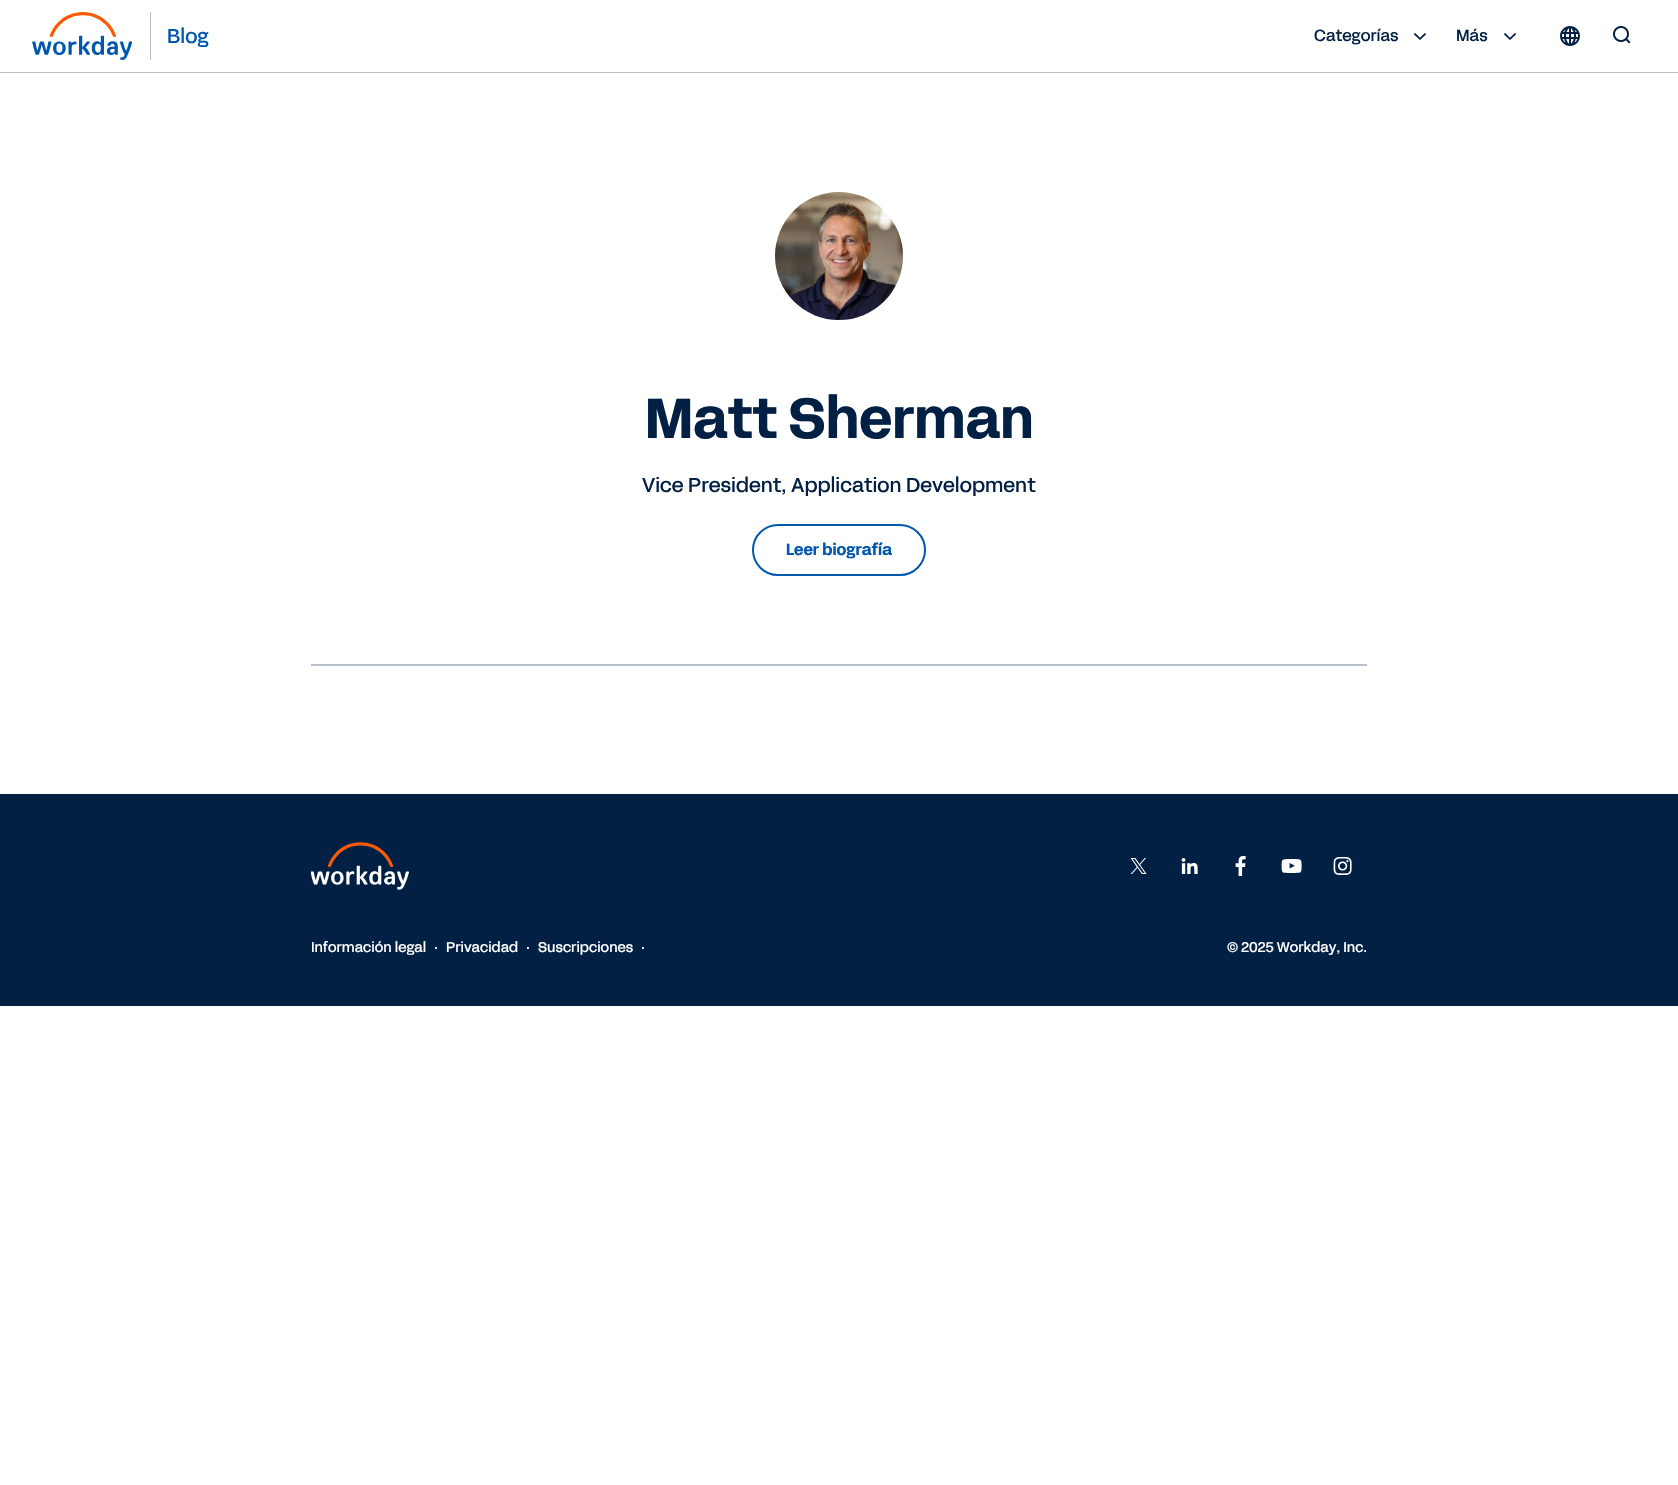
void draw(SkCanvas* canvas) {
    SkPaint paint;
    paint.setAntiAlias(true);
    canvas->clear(0xFFFFFFFF);
    paint.setColor(0xFFB6C1CC);
    canvas->drawRect(SkRect::MakeXYWH(0, 72, 1678, 1), paint);
    canvas->drawRect(SkRect::MakeXYWH(150, 12, 1, 48), paint);
    canvas->drawImageRect(SkImages::DeferredFromEncodedData(SkData::MakeFromFileName("img1.png")), SkRect::MakeXYWH(32, 12, 101, 48), SkSamplingOptions());
    SkFont font1(fontMgr->matchFamilyStyle("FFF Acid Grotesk", SkFontStyle::Normal()), 20);
    font1.setSubpixel(true);
    paint.setColor(0xFF0057AE);
    canvas->drawString("Blog", 167, 43, font1, paint);
    SkFont font2(fontMgr->matchFamilyStyle("FFF Acid Grotesk", SkFontStyle::Normal()), 16);
    font2.setSubpixel(true);
    paint.setColor(0xFF022043);
    canvas->drawString("Categorías", 1314, 41, font2, paint);
    canvas->drawImageRect(SkImages::DeferredFromEncodedData(SkData::MakeFromFileName("img2.png")), SkRect::MakeXYWH(1414, 33, 12, 7), SkSamplingOptions());
    canvas->drawString("Más", 1456, 41, font2, paint);
    canvas->drawImageRect(SkImages::DeferredFromEncodedData(SkData::MakeFromFileName("img2.png")), SkRect::MakeXYWH(1504, 33, 12, 7), SkSamplingOptions());
    canvas->drawImageRect(SkImages::DeferredFromEncodedData(SkData::MakeFromFileName("img3.png")), SkRect::MakeXYWH(1560, 26, 20, 20), SkSamplingOptions());
    canvas->drawImageRect(SkImages::DeferredFromEncodedData(SkData::MakeFromFileName("img4.png")), SkRect::MakeXYWH(1613, 26, 18, 18), SkSamplingOptions());
    paint.setColor(0xFFB6C1CC);
    canvas->drawRect(SkRect::MakeXYWH(311, 664, 1056, 2), paint);
    canvas->drawImageRect(SkImages::DeferredFromEncodedData(SkData::MakeFromFileName("img5.png")), SkRect::MakeXYWH(775, 192, 128, 128), SkSamplingOptions());
    SkFont font3(fontMgr->matchFamilyStyle("FFF Acid Grotesk", SkFontStyle::Bold()), 56);
    font3.setSubpixel(true);
    paint.setColor(0xFF022043);
    canvas->drawString("Matt Sherman", 645, 438, font3, paint);
    canvas->drawString("Vice President, Application Development", 642, 492, font1, paint);
    paint.setStyle(SkPaint::kStroke_Style);
    paint.setStrokeWidth(2);
    paint.setColor(0xFF0057AE);
    canvas->drawRoundRect(SkRect::MakeXYWH(753, 525, 172, 50), 25, 25, paint);
    SkFont font4(fontMgr->matchFamilyStyle("FFF Acid Grotesk", SkFontStyle::Bold()), 16);
    font4.setSubpixel(true);
    paint.setStyle(SkPaint::kFill_Style);
    canvas->drawString("Leer biografía", 786, 555, font4, paint);
    paint.setColor(0xFF022043);
    canvas->drawRect(SkRect::MakeXYWH(0, 794, 1678, 212), paint);
    canvas->drawImageRect(SkImages::DeferredFromEncodedData(SkData::MakeFromFileName("img6.png")), SkRect::MakeXYWH(310, 842, 99, 48), SkSamplingOptions());
    canvas->drawImageRect(SkImages::DeferredFromEncodedData(SkData::MakeFromFileName("img7.png")), SkRect::MakeXYWH(1130, 858, 17, 16), SkSamplingOptions());
    canvas->drawImageRect(SkImages::DeferredFromEncodedData(SkData::MakeFromFileName("img8.png")), SkRect::MakeXYWH(1181, 858, 17, 16), SkSamplingOptions());
    canvas->drawImageRect(SkImages::DeferredFromEncodedData(SkData::MakeFromFileName("img9.png")), SkRect::MakeXYWH(1235, 856, 11, 20), SkSamplingOptions());
    canvas->drawImageRect(SkImages::DeferredFromEncodedData(SkData::MakeFromFileName("img10.png")), SkRect::MakeXYWH(1281, 859, 21, 14), SkSamplingOptions());
    canvas->drawImageRect(SkImages::DeferredFromEncodedData(SkData::MakeFromFileName("img11.png")), SkRect::MakeXYWH(1333, 857, 19, 18), SkSamplingOptions());
    SkFont font5(fontMgr->matchFamilyStyle("FFF Acid Grotesk", SkFontStyle::Normal()), 14);
    font5.setSubpixel(true);
    paint.setColor(0xFFFFFFFF);
    canvas->drawString("Información legal", 311, 952, font5, paint);
    canvas->drawString(".", 434, 949, font2, paint);
    canvas->drawString("Privacidad", 446, 952, font5, paint);
    canvas->drawString(".", 526, 949, font2, paint);
    canvas->drawString("Suscripciones", 538, 952, font5, paint);
    canvas->drawString(".", 641, 949, font2, paint);
    canvas->drawString("© 2025 Workday, Inc.", 1227, 952, font5, paint);
}
